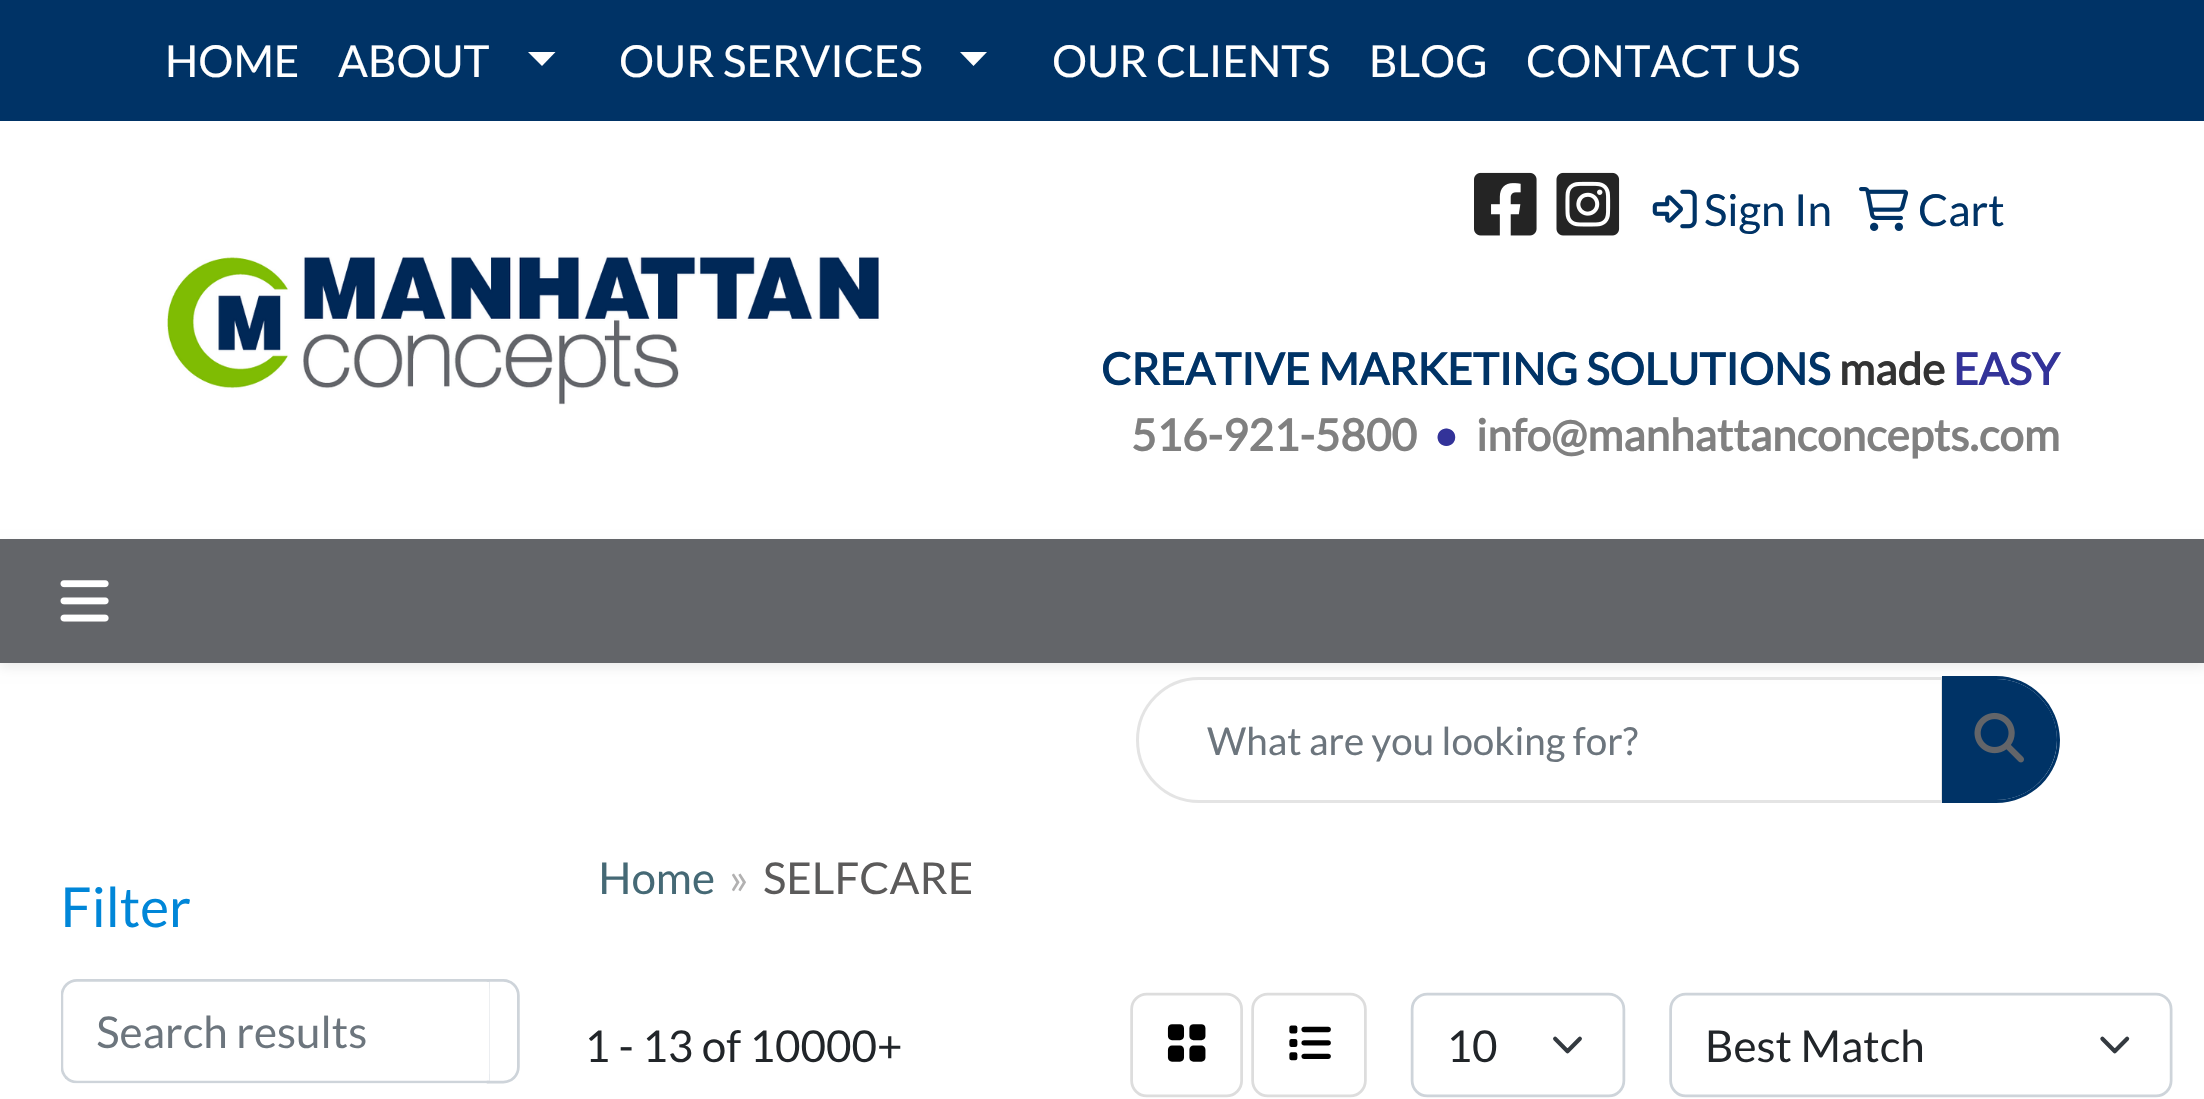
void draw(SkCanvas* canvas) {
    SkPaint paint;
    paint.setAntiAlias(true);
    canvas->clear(0xFFFFFFFF);
    paint.setColor(0xFF003366);
    canvas->drawRect(SkRect::MakeXYWH(0, 0, 2204, 121), paint);
    SkFont font1(fontMgr->matchFamilyStyle("Lato", SkFontStyle::Normal()), 44);
    font1.setSubpixel(true);
    paint.setColor(0xFFFFFFFF);
    canvas->drawString("HOME", 165, 77, font1, paint);
    canvas->drawString("ABOUT", 338, 77, font1, paint);
    canvas->drawPath(SkPathBuilder().moveTo(528, 52).lineTo(555.5f, 52).lineTo(542, 66).close().detach(), paint);
    canvas->drawString("OUR SERVICES", 619, 77, font1, paint);
    canvas->drawPath(SkPathBuilder().moveTo(960, 52).lineTo(987, 52).lineTo(973.5f, 66).close().detach(), paint);
    canvas->drawString("OUR CLIENTS", 1052, 77, font1, paint);
    canvas->drawString("BLOG", 1369, 77, font1, paint);
    canvas->drawString("CONTACT US", 1526, 77, font1, paint);
    canvas->drawImageRect(SkImages::DeferredFromEncodedData(SkData::MakeFromFileName("img1.png")), SkRect::MakeXYWH(167, 256, 712, 149), SkSamplingOptions());
    canvas->drawImageRect(SkImages::DeferredFromEncodedData(SkData::MakeFromFileName("img2.png")), SkRect::MakeXYWH(1474, 172, 63, 64), SkSamplingOptions());
    canvas->drawImageRect(SkImages::DeferredFromEncodedData(SkData::MakeFromFileName("img3.png")), SkRect::MakeXYWH(1556, 172, 64, 64), SkSamplingOptions());
    canvas->drawImageRect(SkImages::DeferredFromEncodedData(SkData::MakeFromFileName("img4.png")), SkRect::MakeXYWH(1652, 189, 45, 40), SkSamplingOptions());
    paint.setColor(0xFF003366);
    canvas->drawString("Sign In", 1704, 226, font1, paint);
    canvas->drawImageRect(SkImages::DeferredFromEncodedData(SkData::MakeFromFileName("img5.png")), SkRect::MakeXYWH(1859, 187, 50, 44), SkSamplingOptions());
    canvas->drawString("Cart", 1918, 226, font1, paint);
    SkFont font2(fontMgr->matchFamilyStyle("Lato", SkFontStyle::Bold()), 44);
    font2.setSubpixel(true);
    canvas->drawString("CREATIVE MARKETING SOLUTIONS", 1101, 385, font2, paint);
    paint.setColor(0xFF333333);
    canvas->drawString("made", 1839, 385, font2, paint);
    paint.setColor(0xFF333399);
    canvas->drawString("EASY", 1953, 385, font2, paint);
    paint.setColor(0xFF808080);
    canvas->drawString("516-921-5800", 1131, 451, font2, paint);
    paint.setColor(0xFF333399);
    canvas->drawString("•", 1433, 451, font2, paint);
    paint.setColor(0xFF808080);
    canvas->drawString("info@manhattanconcepts.com", 1476, 451, font2, paint);
    paint.setColor(0x12000000);
    paint.setMaskFilter(SkMaskFilter::MakeBlur(kNormal_SkBlurStyle, 5.5f));
    canvas->drawRect(SkRect::MakeXYWH(0, 545, 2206, 123), paint);
    paint.setMaskFilter(nullptr);
    paint.setColor(0xFF636569);
    canvas->drawRect(SkRect::MakeXYWH(0, 539, 2204, 124), paint);
    canvas->drawImageRect(SkImages::DeferredFromEncodedData(SkData::MakeFromFileName("img6.png")), SkRect::MakeXYWH(60, 580, 49, 42), SkSamplingOptions());
    paint.setStyle(SkPaint::kStroke_Style);
    paint.setStrokeWidth(3);
    paint.setColor(0xFFE4E4E4);
    canvas->drawPath(SkPathBuilder().moveTo(1199, 678.5f).lineTo(1942.5f, 678.5f).lineTo(1942.5f, 801.5f).lineTo(1199, 801.5f).cubicTo(1165, 801.5f, 1137.5f, 774, 1137.5f, 740).cubicTo(1137.5f, 706, 1165, 678.5f, 1199, 678.5f).close().detach(), paint);
    SkFont font3(fontMgr->matchFamilyStyle("Lato", SkFontStyle::Normal()), 38.5f);
    font3.setSubpixel(true);
    paint.setStyle(SkPaint::kFill_Style);
    paint.setColor(0xFF6C757D);
    canvas->drawString("What are you looking for?", 1207, 755, font3, paint);
    paint.setColor(0xFF003366);
    canvas->drawPath(SkPathBuilder().moveTo(1942, 679).lineTo(1996.5f, 679).cubicTo(2030, 679, 2057, 706, 2057, 739.5f).cubicTo(2057, 773, 2030, 800, 1996.5f, 800).lineTo(1942, 800).close().detach(), paint);
    canvas->drawPath(SkPathBuilder(SkPathFillType::kEvenOdd).moveTo(1942, 676).lineTo(1996, 676).cubicTo(2031, 676, 2060, 705, 2060, 740).cubicTo(2060, 775, 2031, 803, 1996, 803).lineTo(1942, 803).close().moveTo(1942, 679).lineTo(1996, 679).cubicTo(2030, 679, 2057, 706, 2057, 740).cubicTo(2057, 773, 2030, 800, 1996, 800).lineTo(1942, 800).close().detach(), paint);
    canvas->drawImageRect(SkImages::DeferredFromEncodedData(SkData::MakeFromFileName("img7.png")), SkRect::MakeXYWH(1974, 712, 50, 51), SkSamplingOptions());
    canvas->drawImageRect(SkImages::DeferredFromEncodedData(SkData::MakeFromFileName("img8.png")), SkRect::MakeXYWH(61, 862, 2112, 236), SkSamplingOptions());
}
